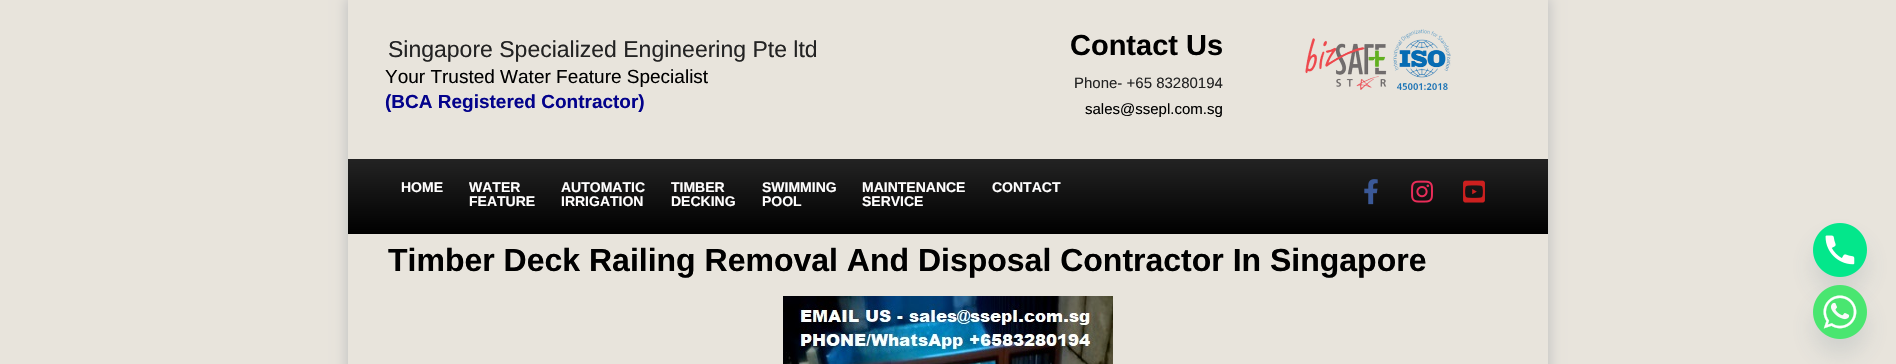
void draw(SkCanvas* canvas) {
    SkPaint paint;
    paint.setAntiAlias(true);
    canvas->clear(0xFFE8E4DC);
    canvas->save();
    canvas->clipPath(SkPathBuilder(SkPathFillType::kEvenOdd).moveTo(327, 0).lineTo(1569, 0).lineTo(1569, 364).lineTo(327, 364).close().moveTo(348, 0).lineTo(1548, 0).lineTo(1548, 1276).lineTo(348, 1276).close().detach(), true);
    paint.setColor(0xFFC4C4C4);
    paint.setMaskFilter(SkMaskFilter::MakeBlur(kNormal_SkBlurStyle, 6));
    canvas->drawRect(SkRect::MakeXYWH(346, -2, 1204, 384), paint);
    paint.setMaskFilter(nullptr);
    canvas->restore();
    SkFont font1(fontMgr->matchFamilyStyle("Liberation Sans", SkFontStyle::Normal()), 23);
    font1.setSubpixel(true);
    paint.setColor(0xFF232323);
    canvas->drawString("Singapore Specialized Engineering Pte ltd", 388, 57, font1, paint);
    SkFont font2(fontMgr->matchFamilyStyle("Liberation Sans", SkFontStyle::Normal()), 19);
    font2.setSubpixel(true);
    paint.setColor(0xFF000000);
    canvas->drawString("Your Trusted Water Feature Specialist", 385, 83, font2, paint);
    SkFont font3(fontMgr->matchFamilyStyle("Liberation Sans", SkFontStyle::Bold()), 19);
    font3.setSubpixel(true);
    paint.setColor(0xFF03028B);
    canvas->drawString("(BCA Registered Contractor)", 385, 108, font3, paint);
    SkFont font4(fontMgr->matchFamilyStyle("Liberation Sans", SkFontStyle::Bold()), 29);
    font4.setSubpixel(true);
    paint.setColor(0xFF000000);
    canvas->drawString("Contact Us", 1070, 55, font4, paint);
    SkFont font5(fontMgr->matchFamilyStyle("Liberation Sans", SkFontStyle::Normal()), 15);
    font5.setSubpixel(true);
    paint.setColor(0xFF232323);
    canvas->drawString("Phone- +65 83280194", 1074, 88, font5, paint);
    paint.setColor(0xFF000000);
    canvas->drawString("sales@ssepl.com.sg", 1085, 114, font5, paint);
    canvas->drawImageRect(SkImages::DeferredFromEncodedData(SkData::MakeFromFileName("img1.png")), SkRect::MakeXYWH(1305, 29, 146, 61), SkSamplingOptions());
    {
        const SkColor colors[] = {0xFF232323, 0xFF000000};
        const float stops[] = {0, 1};
        const SkPoint ends[] = {{948, 159}, {948, 234}};
        paint.setShader(SkGradientShader::MakeLinear(ends, colors, stops, 2, SkTileMode::kClamp));
        paint.setAlpha(255);
    }
    canvas->drawRect(SkRect::MakeXYWH(348, 159, 1200, 75), paint);
    SkFont font6(fontMgr->matchFamilyStyle("Liberation Sans", SkFontStyle::Bold()), 14);
    font6.setSubpixel(true);
    paint.setShader(nullptr);
    paint.setColor(0xFFFFFEFE);
    canvas->drawString("HOME", 401, 192, font6, paint);
    canvas->drawString("WATER", 469, 192, font6, paint);
    canvas->drawString("FEATURE", 469, 206, font6, paint);
    canvas->drawString("AUTOMATIC", 561, 192, font6, paint);
    canvas->drawString("IRRIGATION", 561, 206, font6, paint);
    canvas->drawString("TIMBER", 671, 192, font6, paint);
    canvas->drawString("DECKING", 671, 206, font6, paint);
    canvas->drawString("SWIMMING", 762, 192, font6, paint);
    canvas->drawString("POOL", 762, 206, font6, paint);
    canvas->drawString("MAINTENANCE", 862, 192, font6, paint);
    canvas->drawString("SERVICE", 862, 206, font6, paint);
    canvas->drawString("CONTACT", 992, 192, font6, paint);
    canvas->drawImageRect(SkImages::DeferredFromEncodedData(SkData::MakeFromFileName("img2.png")), SkRect::MakeXYWH(1364, 179, 14, 26), SkSamplingOptions());
    canvas->drawImageRect(SkImages::DeferredFromEncodedData(SkData::MakeFromFileName("img3.png")), SkRect::MakeXYWH(1411, 180, 22, 23), SkSamplingOptions());
    canvas->drawImageRect(SkImages::DeferredFromEncodedData(SkData::MakeFromFileName("img4.png")), SkRect::MakeXYWH(1463, 180, 22, 23), SkSamplingOptions());
    SkFont font7(fontMgr->matchFamilyStyle("Liberation Sans", SkFontStyle::Bold()), 32);
    font7.setSubpixel(true);
    paint.setColor(0xFF000000);
    canvas->drawString("Timber Deck Railing Removal And Disposal Contractor In Singapore", 388, 271, font7, paint);
    canvas->drawImageRect(SkImages::DeferredFromEncodedData(SkData::MakeFromFileName("img5.png")), SkRect::MakeXYWH(783, 296, 330, 68), SkSamplingOptions());
    paint.setColor(0x2949687E);
    paint.setMaskFilter(SkMaskFilter::MakeBlur(kNormal_SkBlurStyle, 12));
    canvas->drawRoundRect(SkRect::MakeXYWH(1813, 239, 54, 54), 27, 27, paint);
    paint.setMaskFilter(nullptr);
    canvas->drawImageRect(SkImages::DeferredFromEncodedData(SkData::MakeFromFileName("img6.png")), SkRect::MakeXYWH(1813, 223, 54, 54), SkSamplingOptions());
    paint.setMaskFilter(SkMaskFilter::MakeBlur(kNormal_SkBlurStyle, 12));
    canvas->drawRoundRect(SkRect::MakeXYWH(1813, 301, 54, 54), 27, 27, paint);
    paint.setMaskFilter(nullptr);
    canvas->drawImageRect(SkImages::DeferredFromEncodedData(SkData::MakeFromFileName("img7.png")), SkRect::MakeXYWH(1813, 285, 54, 54), SkSamplingOptions());
}
